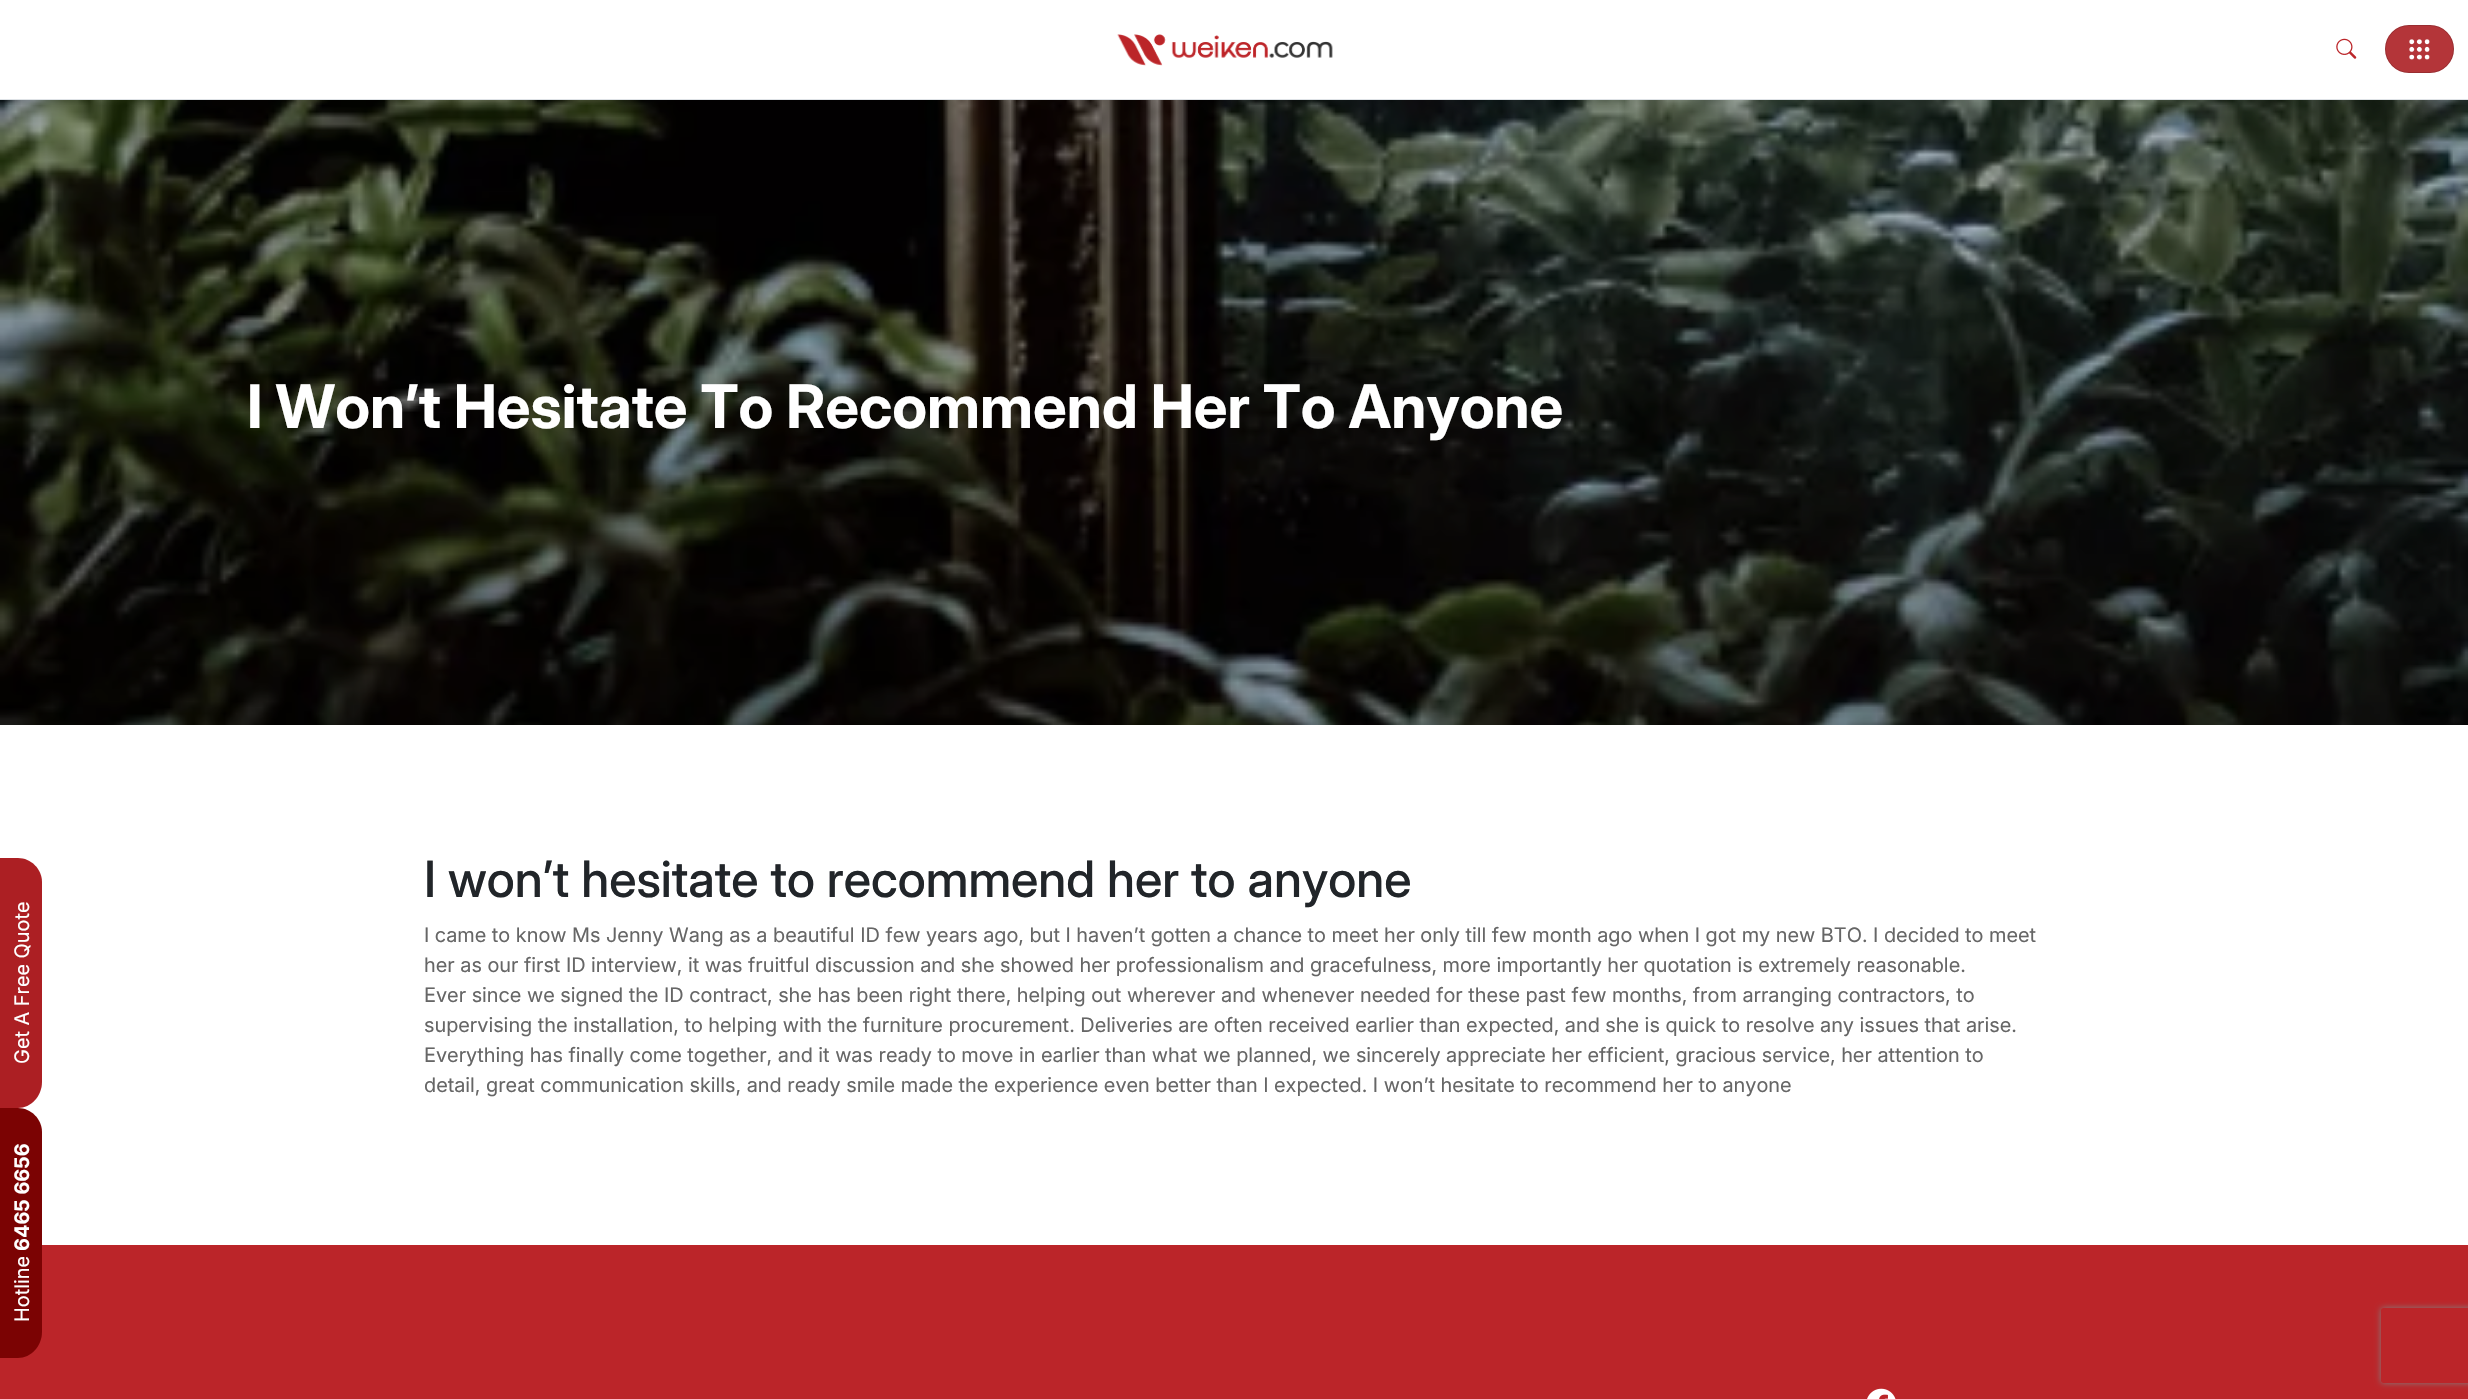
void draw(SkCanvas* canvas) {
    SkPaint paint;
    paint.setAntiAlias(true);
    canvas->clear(0xFFFFFFFF);
    paint.setColor(0xFFAC1F23);
    canvas->drawPath(SkPathBuilder().moveTo(0, 1108).lineTo(0, 858).lineTo(18, 858).cubicTo(31, 858, 42, 869, 42, 882).lineTo(42, 1082).cubicTo(42, 1096, 31, 1108, 18, 1108).close().detach(), paint);
    SkFont font1(fontMgr->matchFamilyStyle("Inter", SkFontStyle::Normal()), 20);
    font1.setSubpixel(true);
    paint.setColor(0xFFFFFFFF);
    canvas->save();
    canvas->rotate(-90, 29, 1064);
    canvas->drawString("Get A Free Quote", 29, 1064, font1, paint);
    canvas->restore();
    paint.setColor(0xFFBB2529);
    canvas->drawRect(SkRect::MakeXYWH(0, 1245, 2468, 154), paint);
    paint.setColor(0xFF7B0303);
    canvas->drawPath(SkPathBuilder().moveTo(0, 1358).lineTo(0, 1108).lineTo(18, 1108).cubicTo(31, 1108, 42, 1119, 42, 1132).lineTo(42, 1332).cubicTo(42, 1346, 31, 1358, 18, 1358).close().detach(), paint);
    SkFont font2(fontMgr->matchFamilyStyle("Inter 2", SkFontStyle::Bold()), 20);
    font2.setSubpixel(true);
    paint.setColor(0xFFFFFFFF);
    canvas->save();
    canvas->rotate(-90, 29, 1251);
    canvas->drawString("6465 6656", 29, 1251, font2, paint);
    canvas->restore();
    canvas->save();
    canvas->rotate(-90, 29, 1322);
    canvas->drawString("Hotline", 29, 1322, font1, paint);
    canvas->restore();
    paint.setColor(0xFFDEE2E6);
    canvas->drawRect(SkRect::MakeXYWH(0, 99, 2468, 1), paint);
    canvas->drawImageRect(SkImages::DeferredFromEncodedData(SkData::MakeFromFileName("img1.png")), SkRect::MakeXYWH(1117, 34, 216, 32), SkSamplingOptions());
    canvas->drawImageRect(SkImages::DeferredFromEncodedData(SkData::MakeFromFileName("img2.png")), SkRect::MakeXYWH(2336, 38, 21, 21), SkSamplingOptions());
    paint.setColor(0xFFB43539);
    canvas->drawRoundRect(SkRect::MakeXYWH(2385, 25, 69, 48), 24, 24, paint);
    paint.setStyle(SkPaint::kStroke_Style);
    paint.setStrokeWidth(1);
    paint.setColor(0x26000000);
    canvas->drawRoundRect(SkRect::MakeXYWH(2385.5f, 25.5f, 68, 47), 23.5f, 23.5f, paint);
    canvas->drawImageRect(SkImages::DeferredFromEncodedData(SkData::MakeFromFileName("img3.png")), SkRect::MakeXYWH(2409, 39, 21, 21), SkSamplingOptions());
    canvas->drawImageRect(SkImages::DeferredFromEncodedData(SkData::MakeFromFileName("img4.png")), SkRect::MakeXYWH(0, 100, 2468, 625), SkSamplingOptions());
    SkFont font3(fontMgr->matchFamilyStyle("Inter", SkFontStyle::Bold()), 60);
    font3.setSubpixel(true);
    paint.setStyle(SkPaint::kFill_Style);
    paint.setColor(0xFFFFFFFF);
    canvas->drawString("I Won’t Hesitate To Recommend Her To Anyone", 247, 428, font3, paint);
    SkFont font4(fontMgr->matchFamilyStyle("Inter", SkFontStyle(500, SkFontStyle::kNormal_Width, SkFontStyle::kUpright_Slant)), 50);
    font4.setSubpixel(true);
    paint.setColor(0xFF212529);
    canvas->drawString("I won’t hesitate to recommend her to anyone", 424, 897, font4, paint);
    paint.setColor(0xFF666666);
    canvas->drawString("I came to know Ms Jenny Wang as a beautiful ID few years ago, but I haven’t gotten a chance to meet her only till few month ago when I got my new BTO. I decided to meet", 424, 942, font1, paint);
    canvas->drawString("her as our first ID interview, it was fruitful discussion and she showed her professionalism and gracefulness, more importantly her quotation is extremely reasonable.", 424, 972, font1, paint);
    canvas->drawString("Ever since we signed the ID contract, she has been right there, helping out wherever and whenever needed for these past few months, from arranging contractors, to", 424, 1002, font1, paint);
    canvas->drawString("supervising the installation, to helping with the furniture procurement. Deliveries are often received earlier than expected, and she is quick to resolve any issues that arise.", 424, 1032, font1, paint);
    canvas->drawString("Everything has finally come together, and it was ready to move in earlier than what we planned, we sincerely appreciate her efficient, gracious service, her attention to", 424, 1062, font1, paint);
    canvas->drawString("detail, great communication skills, and ready smile made the experience even better than I expected. I won’t hesitate to recommend her to anyone", 424, 1092, font1, paint);
    canvas->drawImageRect(SkImages::DeferredFromEncodedData(SkData::MakeFromFileName("img5.png")), SkRect::MakeXYWH(1867, 1388, 29, 11), SkSamplingOptions());
    canvas->save();
    canvas->clipPath(SkPathBuilder(SkPathFillType::kEvenOdd).moveTo(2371, 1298).lineTo(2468, 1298).lineTo(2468, 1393).lineTo(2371, 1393).close().moveTo(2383.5f, 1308).lineTo(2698.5f, 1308).cubicTo(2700, 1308, 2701, 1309, 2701, 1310.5f).lineTo(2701, 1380.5f).cubicTo(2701, 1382, 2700, 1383, 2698.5f, 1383).lineTo(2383.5f, 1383).cubicTo(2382, 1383, 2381, 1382, 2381, 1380.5f).lineTo(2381, 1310.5f).cubicTo(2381, 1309, 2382, 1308, 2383.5f, 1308).close().detach(), true);
    paint.setColor(0xFF808080);
    paint.setMaskFilter(SkMaskFilter::MakeBlur(kNormal_SkBlurStyle, 3));
    canvas->drawRoundRect(SkRect::MakeXYWH(2381, 1308, 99, 75), 2.5f, 2.5f, paint);
    paint.setMaskFilter(nullptr);
    canvas->restore();
}
